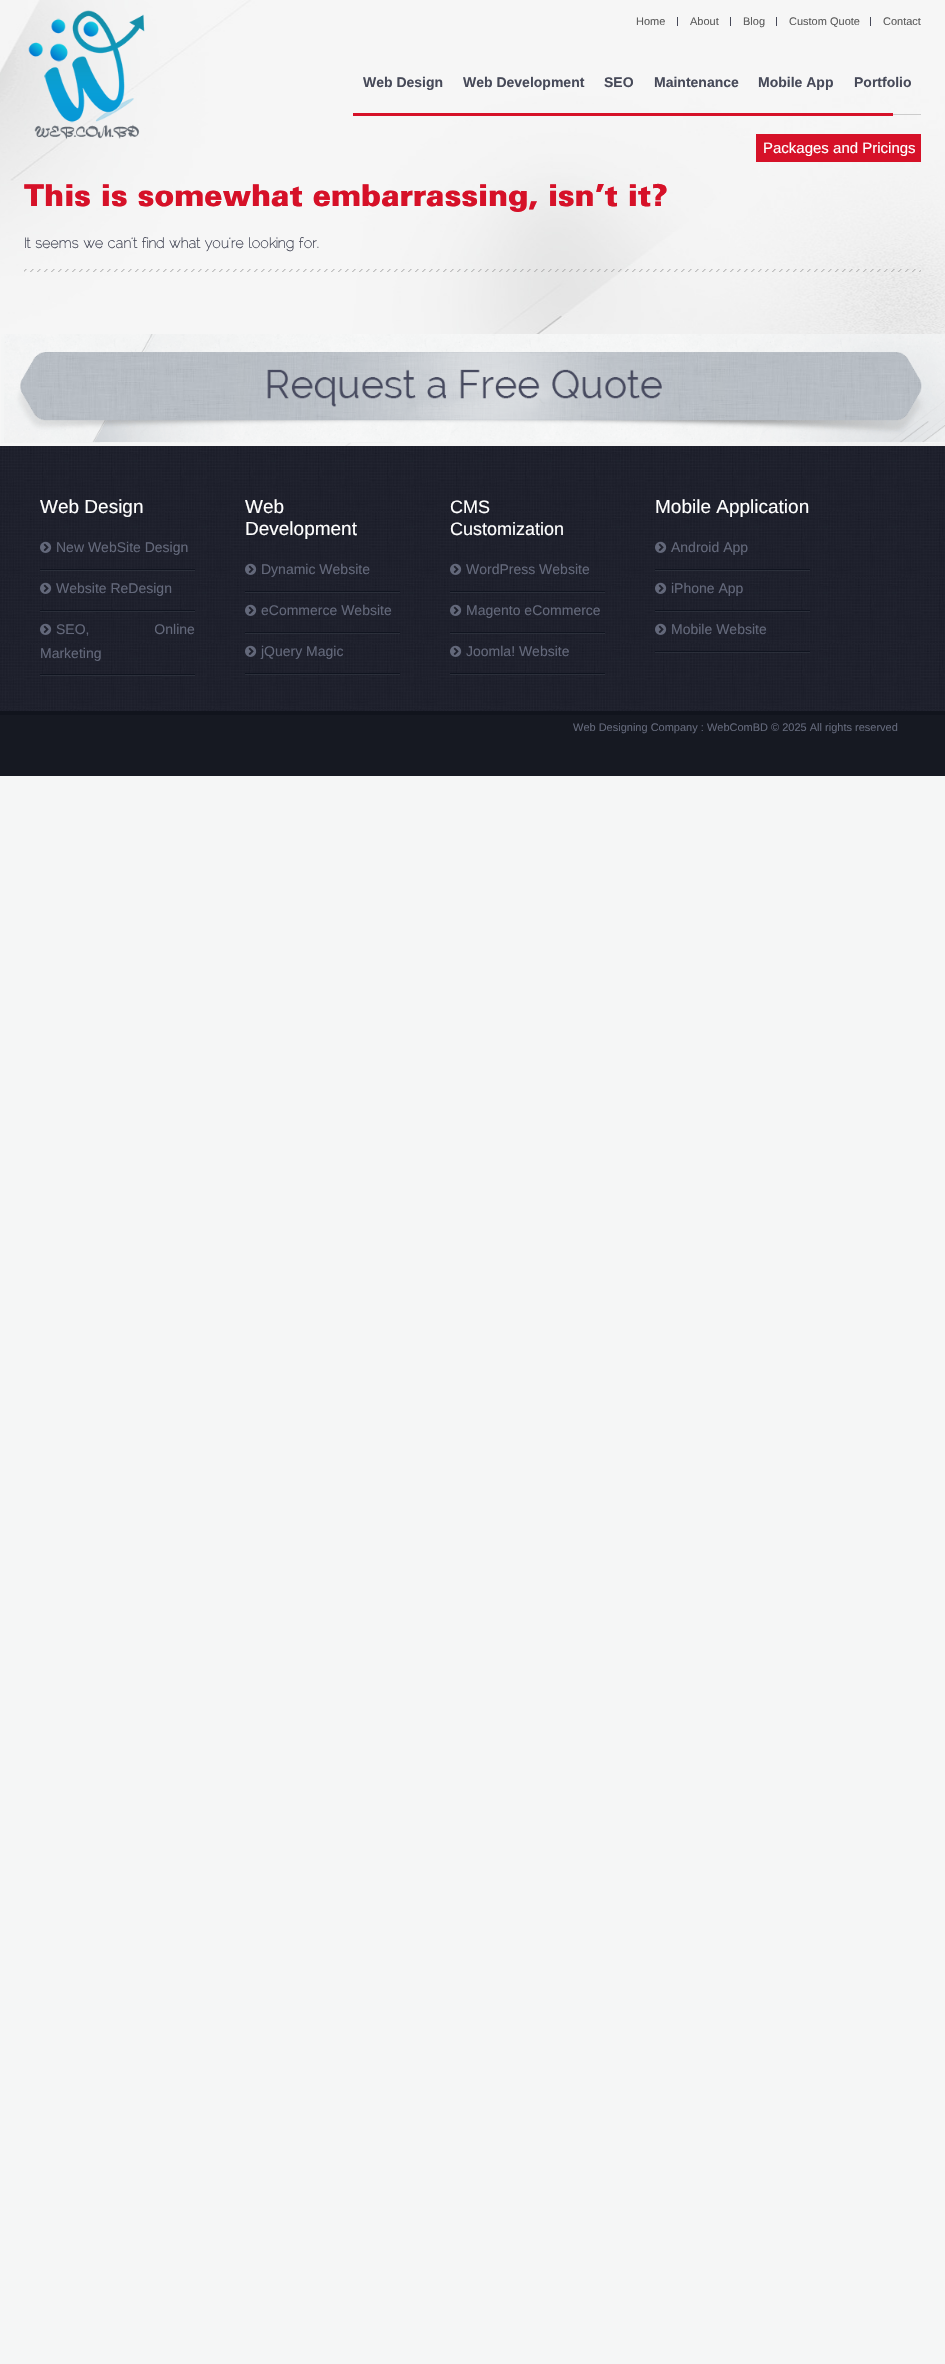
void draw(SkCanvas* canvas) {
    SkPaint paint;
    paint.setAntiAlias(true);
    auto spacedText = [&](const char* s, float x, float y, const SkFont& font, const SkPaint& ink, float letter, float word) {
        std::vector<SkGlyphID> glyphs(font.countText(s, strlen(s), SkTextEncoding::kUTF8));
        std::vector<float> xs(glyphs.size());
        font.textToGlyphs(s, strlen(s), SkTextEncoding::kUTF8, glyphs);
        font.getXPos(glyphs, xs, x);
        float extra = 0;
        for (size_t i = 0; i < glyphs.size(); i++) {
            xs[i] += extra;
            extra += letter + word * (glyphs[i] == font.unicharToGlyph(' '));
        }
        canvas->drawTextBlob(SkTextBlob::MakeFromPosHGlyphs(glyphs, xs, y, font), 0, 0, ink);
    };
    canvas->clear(0xFFF5F6F6);
    canvas->drawImageRect(SkImages::DeferredFromEncodedData(SkData::MakeFromFileName("img1.png")), SkRect::MakeXYWH(0, 0, 945, 446), SkSamplingOptions());
    paint.setColor(0xFF474A59);
    canvas->drawRect(SkRect::MakeXYWH(677, 17, 1, 9), paint);
    SkFont font1(fontMgr->matchFamilyStyle("Liberation Sans", SkFontStyle::Normal()), 11);
    font1.setSubpixel(true);
    paint.setColor(0xFF5D5D5D);
    canvas->drawString("Home", 636, 25, font1, paint);
    paint.setColor(0xFF474A59);
    canvas->drawRect(SkRect::MakeXYWH(730, 17, 1, 9), paint);
    paint.setColor(0xFF5D5D5D);
    canvas->drawString("About", 690, 25, font1, paint);
    paint.setColor(0xFF474A59);
    canvas->drawRect(SkRect::MakeXYWH(776, 17, 1, 9), paint);
    paint.setColor(0xFF5D5D5D);
    canvas->drawString("Blog", 743, 25, font1, paint);
    paint.setColor(0xFF474A59);
    canvas->drawRect(SkRect::MakeXYWH(870, 17, 1, 9), paint);
    paint.setColor(0xFF5D5D5D);
    canvas->drawString("Custom Quote", 789, 25, font1, paint);
    canvas->drawString("Contact", 883, 25, font1, paint);
    canvas->drawImageRect(SkImages::DeferredFromEncodedData(SkData::MakeFromFileName("img2.png")), SkRect::MakeXYWH(28, 10, 117, 129), SkSamplingOptions());
    paint.setColor(0xFFCCCCCC);
    canvas->drawRect(SkRect::MakeXYWH(893, 114, 28, 1), paint);
    SkFont font2(fontMgr->matchFamilyStyle("Liberation Sans", SkFontStyle::Bold()), 14);
    font2.setSubpixel(true);
    paint.setColor(0xFF474A59);
    canvas->drawString("Web Design", 363, 87, font2, paint);
    canvas->drawString("Web Development", 463, 87, font2, paint);
    canvas->drawString("SEO", 604, 87, font2, paint);
    canvas->drawString("Maintenance", 654, 87, font2, paint);
    canvas->drawString("Mobile App", 758, 87, font2, paint);
    canvas->drawString("Portfolio", 854, 87, font2, paint);
    paint.setColor(0xFFD61128);
    canvas->drawRect(SkRect::MakeXYWH(353, 113, 540, 3), paint);
    canvas->drawRect(SkRect::MakeXYWH(756, 134, 165, 28), paint);
    SkFont font3(fontMgr->matchFamilyStyle("Liberation Sans", SkFontStyle::Normal()), 15);
    font3.setSubpixel(true);
    paint.setColor(0xFFFFFFFF);
    canvas->drawString("Packages and Pricings", 763, 153, font3, paint);
    SkFont font4(fontMgr->matchFamilyStyle("Univers", SkFontStyle(900, SkFontStyle::kNormal_Width, SkFontStyle::kItalic_Slant)), 30);
    font4.setSubpixel(true);
    paint.setColor(0xFFD61128);
    canvas->drawString("This is somewhat embarrassing, isn’t it?", 24, 206, font4, paint);
    canvas->drawImageRect(SkImages::DeferredFromEncodedData(SkData::MakeFromFileName("img3.png")), SkRect::MakeXYWH(24, 269, 897, 3), SkSamplingOptions());
    SkFont font5(fontMgr->matchFamilyStyle("Raleway", SkFontStyle::Bold()), 14.25f);
    font5.setSubpixel(true);
    paint.setColor(0xFF474A59);
    canvas->drawString("It seems we can’t find what you’re looking for.", 24, 248, font5, paint);
    canvas->drawImageRect(SkImages::DeferredFromEncodedData(SkData::MakeFromFileName("img4.png")), SkRect::MakeXYWH(1, 334, 944, 109), SkSamplingOptions());
    canvas->drawImageRect(SkImages::DeferredFromEncodedData(SkData::MakeFromFileName("img5.png")), SkRect::MakeXYWH(0, 446, 945, 265), SkSamplingOptions());
    SkFont font6(fontMgr->matchFamilyStyle("Liberation Sans", SkFontStyle::Normal()), 19);
    font6.setSubpixel(true);
    paint.setColor(0xFFFFFFFF);
    canvas->drawString("Web Design", 40, 513, font6, paint);
    canvas->drawImageRect(SkImages::DeferredFromEncodedData(SkData::MakeFromFileName("img6.png")), SkRect::MakeXYWH(40, 569, 155, 2), SkSamplingOptions());
    canvas->drawImageRect(SkImages::DeferredFromEncodedData(SkData::MakeFromFileName("img7.png")), SkRect::MakeXYWH(40, 541, 12, 12), SkSamplingOptions());
    SkFont font7(fontMgr->matchFamilyStyle("Liberation Sans", SkFontStyle::Normal()), 14);
    font7.setSubpixel(true);
    paint.setColor(0xFF63687A);
    canvas->drawString("New WebSite Design", 56, 552, font7, paint);
    canvas->drawImageRect(SkImages::DeferredFromEncodedData(SkData::MakeFromFileName("img6.png")), SkRect::MakeXYWH(40, 610, 155, 2), SkSamplingOptions());
    canvas->drawImageRect(SkImages::DeferredFromEncodedData(SkData::MakeFromFileName("img8.png")), SkRect::MakeXYWH(40, 582, 12, 12), SkSamplingOptions());
    canvas->drawString("Website ReDesign", 56, 593, font7, paint);
    canvas->drawImageRect(SkImages::DeferredFromEncodedData(SkData::MakeFromFileName("img6.png")), SkRect::MakeXYWH(40, 674, 155, 2), SkSamplingOptions());
    canvas->drawImageRect(SkImages::DeferredFromEncodedData(SkData::MakeFromFileName("img9.png")), SkRect::MakeXYWH(40, 623, 12, 12), SkSamplingOptions());
    spacedText("SEO, Online", 56, 634, font7, paint, 0, 61);
    canvas->drawString("Marketing", 40, 658, font7, paint);
    paint.setColor(0xFFFFFFFF);
    canvas->drawString("Web", 245, 513, font6, paint);
    canvas->drawString("Development", 245, 535, font6, paint);
    canvas->drawImageRect(SkImages::DeferredFromEncodedData(SkData::MakeFromFileName("img6.png")), SkRect::MakeXYWH(245, 591, 155, 2), SkSamplingOptions());
    canvas->drawImageRect(SkImages::DeferredFromEncodedData(SkData::MakeFromFileName("img10.png")), SkRect::MakeXYWH(245, 563, 12, 12), SkSamplingOptions());
    paint.setColor(0xFF63687A);
    canvas->drawString("Dynamic Website", 261, 574, font7, paint);
    canvas->drawImageRect(SkImages::DeferredFromEncodedData(SkData::MakeFromFileName("img6.png")), SkRect::MakeXYWH(245, 632, 155, 2), SkSamplingOptions());
    canvas->drawImageRect(SkImages::DeferredFromEncodedData(SkData::MakeFromFileName("img11.png")), SkRect::MakeXYWH(245, 604, 12, 12), SkSamplingOptions());
    canvas->drawString("eCommerce Website", 261, 615, font7, paint);
    canvas->drawImageRect(SkImages::DeferredFromEncodedData(SkData::MakeFromFileName("img6.png")), SkRect::MakeXYWH(245, 673, 155, 2), SkSamplingOptions());
    canvas->drawImageRect(SkImages::DeferredFromEncodedData(SkData::MakeFromFileName("img12.png")), SkRect::MakeXYWH(245, 645, 12, 12), SkSamplingOptions());
    canvas->drawString("jQuery Magic", 261, 656, font7, paint);
    SkFont font8(fontMgr->matchFamilyStyle("Liberation Sans", SkFontStyle::Normal()), 18);
    font8.setSubpixel(true);
    paint.setColor(0xFFFFFFFF);
    canvas->drawString("CMS", 450, 513, font8, paint);
    canvas->drawString("Customization", 450, 535, font8, paint);
    canvas->drawImageRect(SkImages::DeferredFromEncodedData(SkData::MakeFromFileName("img6.png")), SkRect::MakeXYWH(450, 591, 155, 2), SkSamplingOptions());
    canvas->drawImageRect(SkImages::DeferredFromEncodedData(SkData::MakeFromFileName("img13.png")), SkRect::MakeXYWH(450, 563, 12, 12), SkSamplingOptions());
    paint.setColor(0xFF63687A);
    canvas->drawString("WordPress Website", 466, 574, font7, paint);
    canvas->drawImageRect(SkImages::DeferredFromEncodedData(SkData::MakeFromFileName("img6.png")), SkRect::MakeXYWH(450, 632, 155, 2), SkSamplingOptions());
    canvas->drawImageRect(SkImages::DeferredFromEncodedData(SkData::MakeFromFileName("img14.png")), SkRect::MakeXYWH(450, 604, 12, 12), SkSamplingOptions());
    canvas->drawString("Magento eCommerce", 466, 615, font7, paint);
    canvas->drawImageRect(SkImages::DeferredFromEncodedData(SkData::MakeFromFileName("img6.png")), SkRect::MakeXYWH(450, 673, 155, 2), SkSamplingOptions());
    canvas->drawImageRect(SkImages::DeferredFromEncodedData(SkData::MakeFromFileName("img15.png")), SkRect::MakeXYWH(450, 645, 12, 12), SkSamplingOptions());
    canvas->drawString("Joomla! Website", 466, 656, font7, paint);
    paint.setColor(0xFFFFFFFF);
    canvas->drawString("Mobile Application", 655, 513, font6, paint);
    canvas->drawImageRect(SkImages::DeferredFromEncodedData(SkData::MakeFromFileName("img6.png")), SkRect::MakeXYWH(655, 569, 155, 2), SkSamplingOptions());
    canvas->drawImageRect(SkImages::DeferredFromEncodedData(SkData::MakeFromFileName("img16.png")), SkRect::MakeXYWH(655, 541, 12, 12), SkSamplingOptions());
    paint.setColor(0xFF63687A);
    canvas->drawString("Android App", 671, 552, font7, paint);
    canvas->drawImageRect(SkImages::DeferredFromEncodedData(SkData::MakeFromFileName("img6.png")), SkRect::MakeXYWH(655, 610, 155, 2), SkSamplingOptions());
    canvas->drawImageRect(SkImages::DeferredFromEncodedData(SkData::MakeFromFileName("img17.png")), SkRect::MakeXYWH(655, 582, 12, 12), SkSamplingOptions());
    canvas->drawString("iPhone App", 671, 593, font7, paint);
    canvas->drawImageRect(SkImages::DeferredFromEncodedData(SkData::MakeFromFileName("img6.png")), SkRect::MakeXYWH(655, 651, 155, 2), SkSamplingOptions());
    canvas->drawImageRect(SkImages::DeferredFromEncodedData(SkData::MakeFromFileName("img18.png")), SkRect::MakeXYWH(655, 623, 12, 12), SkSamplingOptions());
    canvas->drawString("Mobile Website", 671, 634, font7, paint);
    paint.setColor(0xFF161922);
    canvas->drawRect(SkRect::MakeXYWH(0, 715, 945, 61), paint);
    paint.setColor(0xFF11141D);
    canvas->drawRect(SkRect::MakeXYWH(0, 711, 945, 4), paint);
    paint.setColor(0xFF63687A);
    canvas->drawString("Web Designing Company : WebComBD © 2025 All rights reserved", 573, 731, font1, paint);
}
